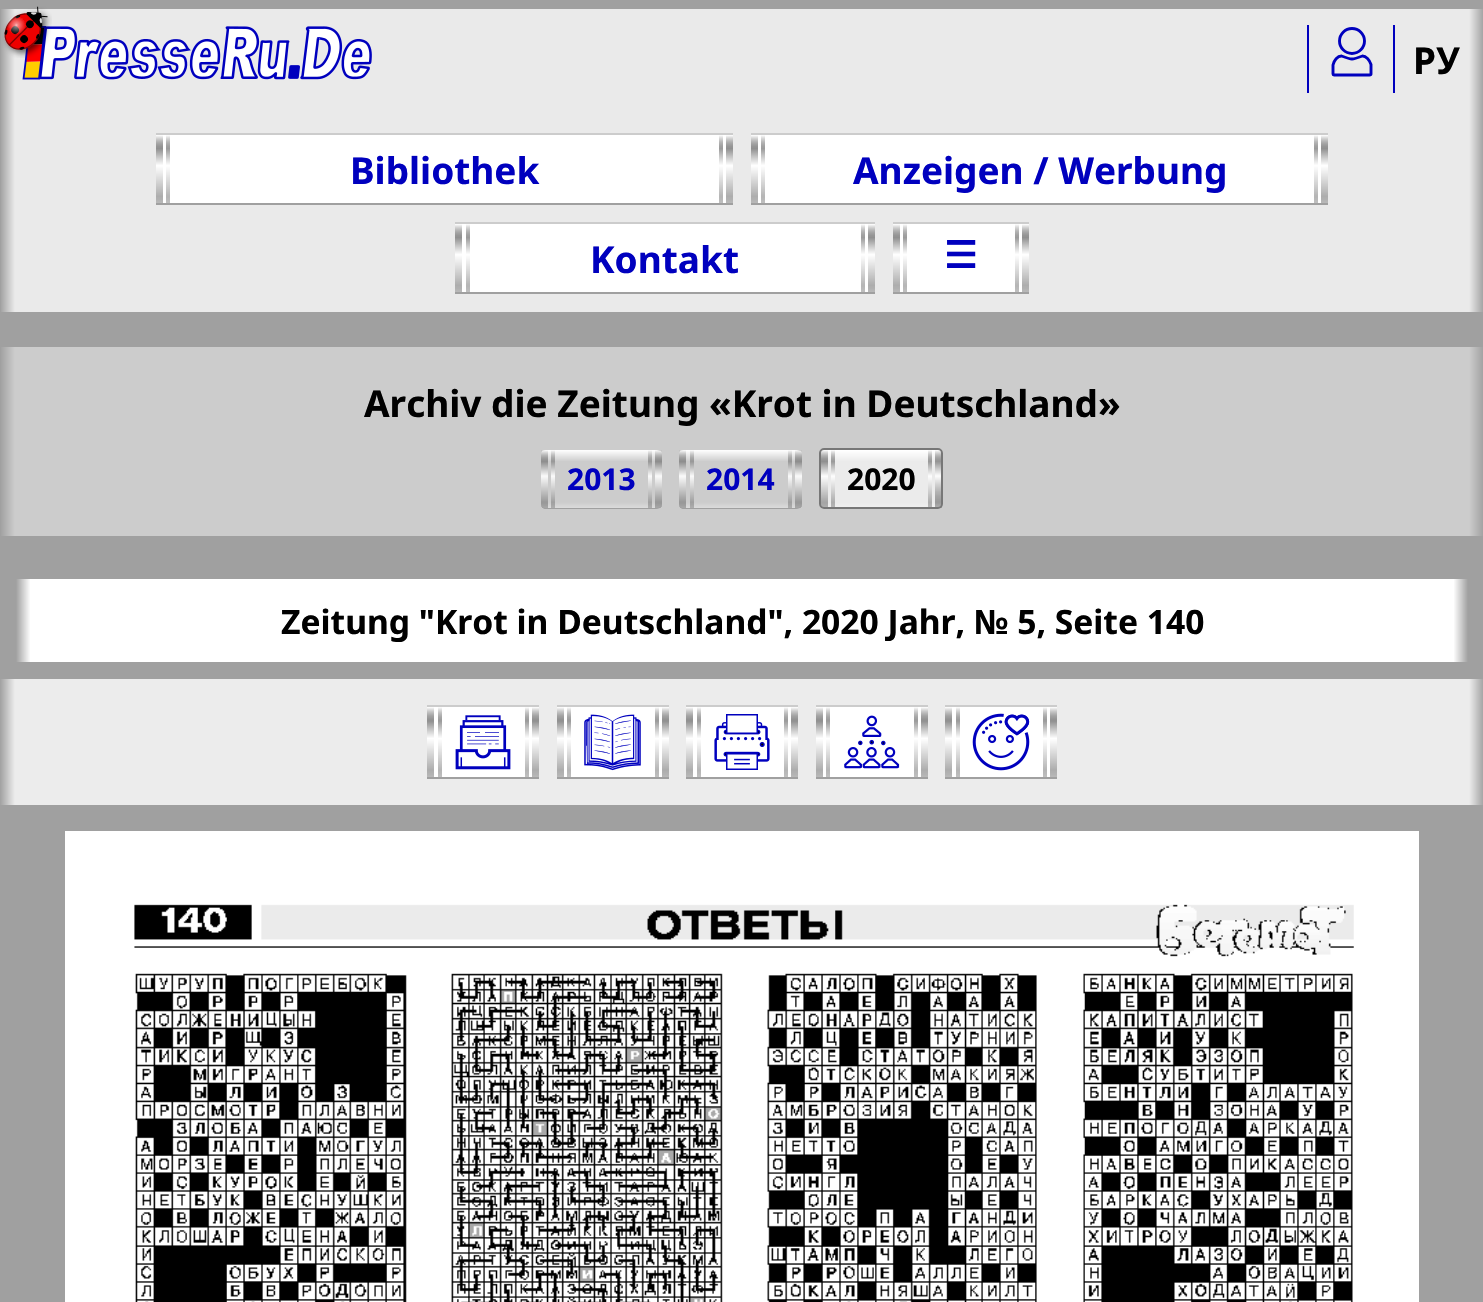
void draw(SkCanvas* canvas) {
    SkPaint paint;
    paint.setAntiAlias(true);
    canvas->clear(0xFFA0A0A0);
    {
        const SkColor colors[] = {0xFFA0A0A0, 0xFFEAEAEA, 0xFFEAEAEA, 0xFFA0A0A0};
        const float stops[] = {0, 0.01f, 0.99f, 1};
        const SkPoint ends[] = {{0, 160}, {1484, 160}};
        paint.setShader(SkGradientShader::MakeLinear(ends, colors, stops, 4, SkTileMode::kClamp));
        paint.setAlpha(255);
    }
    canvas->drawRect(SkRect::MakeXYWH(1, 9, 1482, 303), paint);
    canvas->drawImageRect(SkImages::DeferredFromEncodedData(SkData::MakeFromFileName("img2.png")), SkRect::MakeXYWH(22, 26, 350, 54), SkSamplingOptions());
    canvas->drawImageRect(SkImages::DeferredFromEncodedData(SkData::MakeFromFileName("img1.png")), SkRect::MakeXYWH(2, 6, 50, 52), SkSamplingOptions());
    paint.setShader(nullptr);
    paint.setColor(0xFF0000BE);
    canvas->drawRect(SkRect::MakeXYWH(1393, 25, 2, 68), paint);
    canvas->drawRect(SkRect::MakeXYWH(1307, 25, 2, 68), paint);
    paint.setStyle(SkPaint::kStroke_Style);
    paint.setStrokeWidth(2.9f);
    canvas->drawPath(SkPathBuilder().moveTo(1333, 65).lineTo(1333, 74).cubicTo(1333, 74, 1333, 75, 1334, 75).lineTo(1369.5f, 75).cubicTo(1371, 75, 1371, 74, 1371, 74).lineTo(1371, 64.5f).cubicTo(1369.5f, 60, 1366, 56, 1362.5f, 56).cubicTo(1352, 60, 1352, 60, 1341.5f, 56).cubicTo(1337.5f, 56, 1334, 60.5f, 1333, 65).close().detach(), paint);
    canvas->drawCircle(1352, 41, 12.5f, paint);
    SkFont font1(fontMgr->matchFamilyStyle("Noto Sans", SkFontStyle::Bold()), 37);
    font1.setSubpixel(true);
    paint.setStyle(SkPaint::kFill_Style);
    paint.setColor(0xFF000000);
    canvas->drawString("РУ", 1413, 74, font1, paint);
    paint.setColor(0xFFFFFFFF);
    canvas->drawRect(SkRect::MakeXYWH(163, 135, 563, 68), paint);
    {
        const SkColor colors[] = {0xFF4B4B4B, 0xFFFFFFFF, 0xFFA5A5A5};
        const float stops[] = {0, 0.45f, 1};
        const SkPoint ends[] = {{721, 135}, {721, 203}};
        paint.setShader(SkGradientShader::MakeLinear(ends, colors, stops, 3, SkTileMode::kClamp));
        paint.setAlpha(255);
    }
    canvas->drawRect(SkRect::MakeXYWH(719, 135, 4, 68), paint);
    {
        const SkColor colors[] = {0xFF4B4B4B, 0xFFFFFFFF, 0xFFA5A5A5};
        const float stops[] = {0, 0.45f, 1};
        const SkPoint ends[] = {{168, 135}, {168, 203}};
        paint.setShader(SkGradientShader::MakeLinear(ends, colors, stops, 3, SkTileMode::kClamp));
        paint.setAlpha(255);
    }
    canvas->drawRect(SkRect::MakeXYWH(166, 135, 4, 68), paint);
    {
        const SkColor colors[] = {0xFF373737, 0xFFFFFFFF, 0xFF9B9B9B};
        const float stops[] = {0, 0.45f, 1};
        const SkPoint ends[] = {{730, 135}, {730, 203}};
        paint.setShader(SkGradientShader::MakeLinear(ends, colors, stops, 3, SkTileMode::kClamp));
        paint.setAlpha(255);
    }
    canvas->drawRect(SkRect::MakeXYWH(726, 135, 7, 68), paint);
    {
        const SkColor colors[] = {0xFF373737, 0xFFFFFFFF, 0xFF9B9B9B};
        const float stops[] = {0, 0.45f, 1};
        const SkPoint ends[] = {{159, 135}, {159, 203}};
        paint.setShader(SkGradientShader::MakeLinear(ends, colors, stops, 3, SkTileMode::kClamp));
        paint.setAlpha(255);
    }
    canvas->drawRect(SkRect::MakeXYWH(156, 135, 7, 68), paint);
    {
        const SkColor colors[] = {0xFFFFFFFF, 0x00FFFFFF, 0x00FFFFFF, 0x4DFFFFFF};
        const float stops[] = {0, 0.2f, 0.9f, 1};
        const SkPoint ends[] = {{445, 135}, {445, 203}};
        paint.setShader(SkGradientShader::MakeLinear(ends, colors, stops, 4, SkTileMode::kClamp));
        paint.setAlpha(255);
    }
    canvas->drawRect(SkRect::MakeXYWH(156, 135, 577, 68), paint);
    paint.setShader(nullptr);
    paint.setColor(0xFFCCCCCC);
    canvas->drawRect(SkRect::MakeXYWH(156, 133, 577, 2), paint);
    paint.setColor(0xFFA0A0A0);
    canvas->drawRect(SkRect::MakeXYWH(156, 203, 577, 2), paint);
    paint.setColor(0xFF0000BE);
    canvas->drawString("Bibliothek", 350, 184, font1, paint);
    paint.setColor(0xFFFFFFFF);
    canvas->drawRect(SkRect::MakeXYWH(758, 135, 563, 68), paint);
    {
        const SkColor colors[] = {0xFF4B4B4B, 0xFFFFFFFF, 0xFFA5A5A5};
        const float stops[] = {0, 0.45f, 1};
        const SkPoint ends[] = {{1316, 135}, {1316, 203}};
        paint.setShader(SkGradientShader::MakeLinear(ends, colors, stops, 3, SkTileMode::kClamp));
        paint.setAlpha(255);
    }
    canvas->drawRect(SkRect::MakeXYWH(1314, 135, 4, 68), paint);
    {
        const SkColor colors[] = {0xFF4B4B4B, 0xFFFFFFFF, 0xFFA5A5A5};
        const float stops[] = {0, 0.45f, 1};
        const SkPoint ends[] = {{763, 135}, {763, 203}};
        paint.setShader(SkGradientShader::MakeLinear(ends, colors, stops, 3, SkTileMode::kClamp));
        paint.setAlpha(255);
    }
    canvas->drawRect(SkRect::MakeXYWH(761, 135, 4, 68), paint);
    {
        const SkColor colors[] = {0xFF373737, 0xFFFFFFFF, 0xFF9B9B9B};
        const float stops[] = {0, 0.45f, 1};
        const SkPoint ends[] = {{1325, 135}, {1325, 203}};
        paint.setShader(SkGradientShader::MakeLinear(ends, colors, stops, 3, SkTileMode::kClamp));
        paint.setAlpha(255);
    }
    canvas->drawRect(SkRect::MakeXYWH(1321, 135, 7, 68), paint);
    {
        const SkColor colors[] = {0xFF373737, 0xFFFFFFFF, 0xFF9B9B9B};
        const float stops[] = {0, 0.45f, 1};
        const SkPoint ends[] = {{754, 135}, {754, 203}};
        paint.setShader(SkGradientShader::MakeLinear(ends, colors, stops, 3, SkTileMode::kClamp));
        paint.setAlpha(255);
    }
    canvas->drawRect(SkRect::MakeXYWH(751, 135, 7, 68), paint);
    {
        const SkColor colors[] = {0xFFFFFFFF, 0x00FFFFFF, 0x00FFFFFF, 0x4DFFFFFF};
        const float stops[] = {0, 0.2f, 0.9f, 1};
        const SkPoint ends[] = {{1040, 135}, {1040, 203}};
        paint.setShader(SkGradientShader::MakeLinear(ends, colors, stops, 4, SkTileMode::kClamp));
        paint.setAlpha(255);
    }
    canvas->drawRect(SkRect::MakeXYWH(751, 135, 577, 68), paint);
    paint.setShader(nullptr);
    paint.setColor(0xFFCCCCCC);
    canvas->drawRect(SkRect::MakeXYWH(751, 133, 577, 2), paint);
    paint.setColor(0xFFA0A0A0);
    canvas->drawRect(SkRect::MakeXYWH(751, 203, 577, 2), paint);
    paint.setColor(0xFF0000BE);
    canvas->drawString("Anzeigen / Werbung", 853, 184, font1, paint);
    paint.setColor(0xFFFFFFFF);
    canvas->drawRect(SkRect::MakeXYWH(462, 224, 406, 68), paint);
    {
        const SkColor colors[] = {0xFF4B4B4B, 0xFFFFFFFF, 0xFFA5A5A5};
        const float stops[] = {0, 0.45f, 1};
        const SkPoint ends[] = {{863, 224}, {863, 292}};
        paint.setShader(SkGradientShader::MakeLinear(ends, colors, stops, 3, SkTileMode::kClamp));
        paint.setAlpha(255);
    }
    canvas->drawRect(SkRect::MakeXYWH(861, 224, 4, 68), paint);
    {
        const SkColor colors[] = {0xFF4B4B4B, 0xFFFFFFFF, 0xFFA5A5A5};
        const float stops[] = {0, 0.45f, 1};
        const SkPoint ends[] = {{467, 224}, {467, 292}};
        paint.setShader(SkGradientShader::MakeLinear(ends, colors, stops, 3, SkTileMode::kClamp));
        paint.setAlpha(255);
    }
    canvas->drawRect(SkRect::MakeXYWH(466, 224, 4, 68), paint);
    {
        const SkColor colors[] = {0xFF373737, 0xFFFFFFFF, 0xFF9B9B9B};
        const float stops[] = {0, 0.45f, 1};
        const SkPoint ends[] = {{872, 224}, {872, 292}};
        paint.setShader(SkGradientShader::MakeLinear(ends, colors, stops, 3, SkTileMode::kClamp));
        paint.setAlpha(255);
    }
    canvas->drawRect(SkRect::MakeXYWH(868, 224, 7, 68), paint);
    {
        const SkColor colors[] = {0xFF373737, 0xFFFFFFFF, 0xFF9B9B9B};
        const float stops[] = {0, 0.45f, 1};
        const SkPoint ends[] = {{459, 224}, {459, 292}};
        paint.setShader(SkGradientShader::MakeLinear(ends, colors, stops, 3, SkTileMode::kClamp));
        paint.setAlpha(255);
    }
    canvas->drawRect(SkRect::MakeXYWH(455, 224, 7, 68), paint);
    {
        const SkColor colors[] = {0xFFFFFFFF, 0x00FFFFFF, 0x00FFFFFF, 0x4DFFFFFF};
        const float stops[] = {0, 0.2f, 0.9f, 1};
        const SkPoint ends[] = {{665, 224}, {665, 292}};
        paint.setShader(SkGradientShader::MakeLinear(ends, colors, stops, 4, SkTileMode::kClamp));
        paint.setAlpha(255);
    }
    canvas->drawRect(SkRect::MakeXYWH(455, 224, 420, 68), paint);
    paint.setShader(nullptr);
    paint.setColor(0xFFCCCCCC);
    canvas->drawRect(SkRect::MakeXYWH(455, 222, 420, 2), paint);
    paint.setColor(0xFFA0A0A0);
    canvas->drawRect(SkRect::MakeXYWH(455, 292, 420, 2), paint);
    paint.setColor(0xFF0000BE);
    canvas->drawString("Kontakt", 590, 273, font1, paint);
    paint.setColor(0xFFFFFFFF);
    canvas->drawRect(SkRect::MakeXYWH(900, 224, 122, 68), paint);
    {
        const SkColor colors[] = {0xFF4B4B4B, 0xFFFFFFFF, 0xFFA5A5A5};
        const float stops[] = {0, 0.45f, 1};
        const SkPoint ends[] = {{1017, 224}, {1017, 292}};
        paint.setShader(SkGradientShader::MakeLinear(ends, colors, stops, 3, SkTileMode::kClamp));
        paint.setAlpha(255);
    }
    canvas->drawRect(SkRect::MakeXYWH(1015, 224, 4, 68), paint);
    {
        const SkColor colors[] = {0xFF4B4B4B, 0xFFFFFFFF, 0xFFA5A5A5};
        const float stops[] = {0, 0.45f, 1};
        const SkPoint ends[] = {{905, 224}, {905, 292}};
        paint.setShader(SkGradientShader::MakeLinear(ends, colors, stops, 3, SkTileMode::kClamp));
        paint.setAlpha(255);
    }
    canvas->drawRect(SkRect::MakeXYWH(903, 224, 4, 68), paint);
    {
        const SkColor colors[] = {0xFF373737, 0xFFFFFFFF, 0xFF9B9B9B};
        const float stops[] = {0, 0.45f, 1};
        const SkPoint ends[] = {{1026, 224}, {1026, 292}};
        paint.setShader(SkGradientShader::MakeLinear(ends, colors, stops, 3, SkTileMode::kClamp));
        paint.setAlpha(255);
    }
    canvas->drawRect(SkRect::MakeXYWH(1022, 224, 7, 68), paint);
    {
        const SkColor colors[] = {0xFF373737, 0xFFFFFFFF, 0xFF9B9B9B};
        const float stops[] = {0, 0.45f, 1};
        const SkPoint ends[] = {{896, 224}, {896, 292}};
        paint.setShader(SkGradientShader::MakeLinear(ends, colors, stops, 3, SkTileMode::kClamp));
        paint.setAlpha(255);
    }
    canvas->drawRect(SkRect::MakeXYWH(893, 224, 7, 68), paint);
    {
        const SkColor colors[] = {0xFFFFFFFF, 0x00FFFFFF, 0x00FFFFFF, 0x4DFFFFFF};
        const float stops[] = {0, 0.2f, 0.9f, 1};
        const SkPoint ends[] = {{961, 224}, {961, 292}};
        paint.setShader(SkGradientShader::MakeLinear(ends, colors, stops, 4, SkTileMode::kClamp));
        paint.setAlpha(255);
    }
    canvas->drawRect(SkRect::MakeXYWH(893, 224, 136, 68), paint);
    paint.setShader(nullptr);
    paint.setColor(0xFFCCCCCC);
    canvas->drawRect(SkRect::MakeXYWH(893, 222, 136, 2), paint);
    paint.setColor(0xFFA0A0A0);
    canvas->drawRect(SkRect::MakeXYWH(893, 292, 136, 2), paint);
    SkFont font2(fontMgr->matchFamilyStyle("DejaVu Sans", SkFontStyle::Bold()), 37);
    font2.setSubpixel(true);
    paint.setColor(0xFF0000BE);
    canvas->drawString("☰", 944, 268, font2, paint);
    {
        const SkColor colors[] = {0xFFA0A0A0, 0xFFCCCCCC, 0xFFCCCCCC, 0xFFA0A0A0};
        const float stops[] = {0, 0.01f, 0.99f, 1};
        const SkPoint ends[] = {{0, 441}, {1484, 441}};
        paint.setShader(SkGradientShader::MakeLinear(ends, colors, stops, 4, SkTileMode::kClamp));
        paint.setAlpha(255);
    }
    canvas->drawRect(SkRect::MakeXYWH(1, 347, 1482, 189), paint);
    paint.setShader(nullptr);
    paint.setColor(0xFF000000);
    canvas->drawString("Archiv die Zeitung «Krot in Deutschland»", 364, 417, font1, paint);
    {
        const SkColor colors[] = {0xFF4B4B4B, 0xFFFAFAFA, 0xFF8C8C8C};
        const float stops[] = {0, 0.45f, 1};
        const SkPoint ends[] = {{649, 450}, {649, 508}};
        paint.setShader(SkGradientShader::MakeLinear(ends, colors, stops, 3, SkTileMode::kClamp));
        paint.setAlpha(255);
    }
    canvas->drawRect(SkRect::MakeXYWH(648, 450, 4, 58), paint);
    {
        const SkColor colors[] = {0xFF4B4B4B, 0xFFFAFAFA, 0xFF8C8C8C};
        const float stops[] = {0, 0.45f, 1};
        const SkPoint ends[] = {{553, 450}, {553, 508}};
        paint.setShader(SkGradientShader::MakeLinear(ends, colors, stops, 3, SkTileMode::kClamp));
        paint.setAlpha(255);
    }
    canvas->drawRect(SkRect::MakeXYWH(551, 450, 4, 58), paint);
    canvas->save();
    canvas->clipPath(SkPathBuilder().moveTo(546, 448).lineTo(657, 448).cubicTo(660, 448, 662, 450, 662, 453).lineTo(662, 504).cubicTo(662, 507, 660, 509, 657, 509).lineTo(546, 509).cubicTo(543, 509, 541, 507, 541, 504).lineTo(541, 453).cubicTo(541, 450, 543, 448, 546, 448).close().detach(), true);
    {
        const SkColor colors[] = {0xFF373737, 0xFFFAFAFA, 0xFF828282};
        const float stops[] = {0, 0.45f, 1};
        const SkPoint ends[] = {{658, 450}, {658, 508}};
        paint.setShader(SkGradientShader::MakeLinear(ends, colors, stops, 3, SkTileMode::kClamp));
        paint.setAlpha(255);
    }
    canvas->drawRect(SkRect::MakeXYWH(655, 450, 7, 58), paint);
    {
        const SkColor colors[] = {0xFF373737, 0xFFFAFAFA, 0xFF828282};
        const float stops[] = {0, 0.45f, 1};
        const SkPoint ends[] = {{544, 450}, {544, 508}};
        paint.setShader(SkGradientShader::MakeLinear(ends, colors, stops, 3, SkTileMode::kClamp));
        paint.setAlpha(255);
    }
    canvas->drawRect(SkRect::MakeXYWH(541, 450, 7, 58), paint);
    {
        const SkColor colors[] = {0xFFFFFFFF, 0x00FFFFFF, 0x00FFFFFF, 0x4DFFFFFF};
        const float stops[] = {0, 0.2f, 0.9f, 1};
        const SkPoint ends[] = {{601, 450}, {601, 508}};
        paint.setShader(SkGradientShader::MakeLinear(ends, colors, stops, 4, SkTileMode::kClamp));
        paint.setAlpha(255);
    }
    canvas->drawRect(SkRect::MakeXYWH(541, 450, 121, 58), paint);
    canvas->restore();
    paint.setShader(nullptr);
    paint.setColor(0xFFCCCCCC);
    canvas->drawPath(SkPathBuilder().moveTo(546, 448).lineTo(656, 448).cubicTo(658, 448, 661, 449, 662, 451).lineTo(662, 452).cubicTo(661, 451, 658, 450, 656, 450).lineTo(546, 450).cubicTo(543, 450, 541, 451, 541, 453).cubicTo(541, 450, 543, 448, 546, 448).close().detach(), paint);
    paint.setColor(0xFFA0A0A0);
    canvas->drawPath(SkPathBuilder().moveTo(662, 506).cubicTo(661, 508, 658, 509, 656, 509).lineTo(546, 509).cubicTo(543, 509, 541, 507, 541, 504).cubicTo(541, 506, 543, 508, 546, 508).lineTo(656, 508).cubicTo(658, 508, 661, 507, 662, 505).close().detach(), paint);
    SkFont font3(fontMgr->matchFamilyStyle("Noto Sans", SkFontStyle::Bold()), 30);
    font3.setSubpixel(true);
    paint.setColor(0xFF0000BE);
    canvas->drawString("2013", 567, 490, font3, paint);
    {
        const SkColor colors[] = {0xFF4B4B4B, 0xFFFAFAFA, 0xFF8C8C8C};
        const float stops[] = {0, 0.45f, 1};
        const SkPoint ends[] = {{789, 450}, {789, 508}};
        paint.setShader(SkGradientShader::MakeLinear(ends, colors, stops, 3, SkTileMode::kClamp));
        paint.setAlpha(255);
    }
    canvas->drawRect(SkRect::MakeXYWH(788, 450, 4, 58), paint);
    {
        const SkColor colors[] = {0xFF4B4B4B, 0xFFFAFAFA, 0xFF8C8C8C};
        const float stops[] = {0, 0.45f, 1};
        const SkPoint ends[] = {{691, 450}, {691, 508}};
        paint.setShader(SkGradientShader::MakeLinear(ends, colors, stops, 3, SkTileMode::kClamp));
        paint.setAlpha(255);
    }
    canvas->drawRect(SkRect::MakeXYWH(690, 450, 4, 58), paint);
    canvas->save();
    canvas->clipPath(SkPathBuilder().moveTo(684, 448).lineTo(797, 448).cubicTo(800, 448, 802, 450, 802, 453).lineTo(802, 504).cubicTo(802, 507, 800, 509, 797, 509).lineTo(684, 509).cubicTo(681, 509, 679, 507, 679, 504).lineTo(679, 453).cubicTo(679, 450, 681, 448, 684, 448).close().detach(), true);
    {
        const SkColor colors[] = {0xFF373737, 0xFFFAFAFA, 0xFF828282};
        const float stops[] = {0, 0.45f, 1};
        const SkPoint ends[] = {{798, 450}, {798, 508}};
        paint.setShader(SkGradientShader::MakeLinear(ends, colors, stops, 3, SkTileMode::kClamp));
        paint.setAlpha(255);
    }
    canvas->drawRect(SkRect::MakeXYWH(795, 450, 7, 58), paint);
    {
        const SkColor colors[] = {0xFF373737, 0xFFFAFAFA, 0xFF828282};
        const float stops[] = {0, 0.45f, 1};
        const SkPoint ends[] = {{683, 450}, {683, 508}};
        paint.setShader(SkGradientShader::MakeLinear(ends, colors, stops, 3, SkTileMode::kClamp));
        paint.setAlpha(255);
    }
    canvas->drawRect(SkRect::MakeXYWH(679, 450, 7, 58), paint);
    {
        const SkColor colors[] = {0xFFFFFFFF, 0x00FFFFFF, 0x00FFFFFF, 0x4DFFFFFF};
        const float stops[] = {0, 0.2f, 0.9f, 1};
        const SkPoint ends[] = {{740, 450}, {740, 508}};
        paint.setShader(SkGradientShader::MakeLinear(ends, colors, stops, 4, SkTileMode::kClamp));
        paint.setAlpha(255);
    }
    canvas->drawRect(SkRect::MakeXYWH(679, 450, 123, 58), paint);
    canvas->restore();
    paint.setShader(nullptr);
    paint.setColor(0xFFCCCCCC);
    canvas->drawPath(SkPathBuilder().moveTo(684, 448).cubicTo(681, 448, 679, 450, 679, 453).cubicTo(679, 451, 681, 450, 684, 450).lineTo(796, 450).cubicTo(798, 450, 801, 451, 802, 452).cubicTo(802, 449, 798, 448, 796, 448).close().detach(), paint);
    paint.setColor(0xFFA0A0A0);
    canvas->drawPath(SkPathBuilder().moveTo(802, 506).cubicTo(801, 508, 798, 509, 796, 509).lineTo(684, 509).cubicTo(681, 509, 679, 507, 679, 504).cubicTo(679, 506, 681, 508, 684, 508).lineTo(796, 508).cubicTo(798, 508, 801, 507, 802, 505).close().detach(), paint);
    paint.setColor(0xFF0000BE);
    canvas->drawString("2014", 706, 490, font3, paint);
    paint.setColor(0xFFEBEBEB);
    canvas->drawRoundRect(SkRect::MakeXYWH(819, 448, 124, 61), 5, 5, paint);
    {
        const SkColor colors[] = {0xFF4B4B4B, 0xFFFDFDFD, 0xFF9B9B9B};
        const float stops[] = {0, 0.45f, 1};
        const SkPoint ends[] = {{929, 450}, {929, 508}};
        paint.setShader(SkGradientShader::MakeLinear(ends, colors, stops, 3, SkTileMode::kClamp));
        paint.setAlpha(255);
    }
    canvas->drawRect(SkRect::MakeXYWH(928, 450, 4, 58), paint);
    {
        const SkColor colors[] = {0xFF4B4B4B, 0xFFFDFDFD, 0xFF9B9B9B};
        const float stops[] = {0, 0.45f, 1};
        const SkPoint ends[] = {{833, 450}, {833, 508}};
        paint.setShader(SkGradientShader::MakeLinear(ends, colors, stops, 3, SkTileMode::kClamp));
        paint.setAlpha(255);
    }
    canvas->drawRect(SkRect::MakeXYWH(831, 450, 4, 58), paint);
    {
        const SkColor colors[] = {0xFF373737, 0xE6FFFFFF, 0x80373737};
        const float stops[] = {0, 0.45f, 1};
        const SkPoint ends[] = {{938, 450}, {938, 508}};
        paint.setShader(SkGradientShader::MakeLinear(ends, colors, stops, 3, SkTileMode::kClamp));
        paint.setAlpha(255);
    }
    canvas->drawRect(SkRect::MakeXYWH(935, 450, 7, 58), paint);
    {
        const SkColor colors[] = {0xFF373737, 0xFFFDFDFD, 0xFF919191};
        const float stops[] = {0, 0.45f, 1};
        const SkPoint ends[] = {{824, 450}, {824, 508}};
        paint.setShader(SkGradientShader::MakeLinear(ends, colors, stops, 3, SkTileMode::kClamp));
        paint.setAlpha(255);
    }
    canvas->drawRect(SkRect::MakeXYWH(821, 450, 7, 58), paint);
    {
        const SkColor colors[] = {0xFFFFFFFF, 0x00FFFFFF, 0x00FFFFFF, 0x4DFFFFFF};
        const float stops[] = {0, 0.2f, 0.9f, 1};
        const SkPoint ends[] = {{881, 450}, {881, 508}};
        paint.setShader(SkGradientShader::MakeLinear(ends, colors, stops, 4, SkTileMode::kClamp));
        paint.setAlpha(255);
    }
    canvas->drawRect(SkRect::MakeXYWH(821, 450, 121, 58), paint);
    paint.setStyle(SkPaint::kStroke_Style);
    paint.setStrokeWidth(2);
    paint.setShader(nullptr);
    paint.setColor(0xFF777777);
    canvas->drawRoundRect(SkRect::MakeXYWH(820, 449, 122, 59), 4, 4, paint);
    paint.setStyle(SkPaint::kFill_Style);
    paint.setColor(0xFF000000);
    canvas->drawString("2020", 847, 490, font3, paint);
    {
        const SkColor colors[] = {0xFFA0A0A0, 0xFFFFFFFF, 0xFFFFFFFF, 0xFFA0A0A0};
        const float stops[] = {0, 0.01f, 0.99f, 1};
        const SkPoint ends[] = {{16, 620}, {1468, 620}};
        paint.setShader(SkGradientShader::MakeLinear(ends, colors, stops, 4, SkTileMode::kClamp));
        paint.setAlpha(255);
    }
    canvas->drawRect(SkRect::MakeXYWH(16, 579, 1452, 83), paint);
    SkFont font4(fontMgr->matchFamilyStyle("Noto Sans", SkFontStyle::Bold()), 33.6f);
    font4.setSubpixel(true);
    paint.setShader(nullptr);
    paint.setColor(0xFF000000);
    canvas->drawString("Zeitung \"Krot in Deutschland\", 2020 Jahr, № 5, Seite 140", 281, 634, font4, paint);
    {
        const SkColor colors[] = {0xFFA0A0A0, 0xFFECECEC, 0xFFECECEC, 0xFFA0A0A0};
        const float stops[] = {0, 0.01f, 0.99f, 1};
        const SkPoint ends[] = {{0, 742}, {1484, 742}};
        paint.setShader(SkGradientShader::MakeLinear(ends, colors, stops, 4, SkTileMode::kClamp));
        paint.setAlpha(255);
    }
    canvas->drawRect(SkRect::MakeXYWH(0, 679, 1483, 126), paint);
    paint.setShader(nullptr);
    paint.setColor(0xFFFFFFFF);
    canvas->drawRect(SkRect::MakeXYWH(434, 707, 98, 70), paint);
    {
        const SkColor colors[] = {0xFF4B4B4B, 0xFFFFFFFF, 0xFFA5A5A5};
        const float stops[] = {0, 0.45f, 1};
        const SkPoint ends[] = {{527, 707}, {527, 777}};
        paint.setShader(SkGradientShader::MakeLinear(ends, colors, stops, 3, SkTileMode::kClamp));
        paint.setAlpha(255);
    }
    canvas->drawRect(SkRect::MakeXYWH(525, 707, 4, 70), paint);
    {
        const SkColor colors[] = {0xFF4B4B4B, 0xFFFFFFFF, 0xFFA5A5A5};
        const float stops[] = {0, 0.45f, 1};
        const SkPoint ends[] = {{439, 707}, {439, 777}};
        paint.setShader(SkGradientShader::MakeLinear(ends, colors, stops, 3, SkTileMode::kClamp));
        paint.setAlpha(255);
    }
    canvas->drawRect(SkRect::MakeXYWH(438, 707, 4, 70), paint);
    {
        const SkColor colors[] = {0xFF373737, 0xFFFFFFFF, 0xFF9B9B9B};
        const float stops[] = {0, 0.45f, 1};
        const SkPoint ends[] = {{536, 707}, {536, 777}};
        paint.setShader(SkGradientShader::MakeLinear(ends, colors, stops, 3, SkTileMode::kClamp));
        paint.setAlpha(255);
    }
    canvas->drawRect(SkRect::MakeXYWH(532, 707, 7, 70), paint);
    {
        const SkColor colors[] = {0xFF373737, 0xFFFFFFFF, 0xFF9B9B9B};
        const float stops[] = {0, 0.45f, 1};
        const SkPoint ends[] = {{431, 707}, {431, 777}};
        paint.setShader(SkGradientShader::MakeLinear(ends, colors, stops, 3, SkTileMode::kClamp));
        paint.setAlpha(255);
    }
    canvas->drawRect(SkRect::MakeXYWH(427, 707, 7, 70), paint);
    {
        const SkColor colors[] = {0xFFFFFFFF, 0x00FFFFFF, 0x00FFFFFF, 0x4DFFFFFF};
        const float stops[] = {0, 0.2f, 0.9f, 1};
        const SkPoint ends[] = {{483, 707}, {483, 777}};
        paint.setShader(SkGradientShader::MakeLinear(ends, colors, stops, 4, SkTileMode::kClamp));
        paint.setAlpha(255);
    }
    canvas->drawRect(SkRect::MakeXYWH(427, 707, 112, 70), paint);
    paint.setShader(nullptr);
    paint.setColor(0xFFCCCCCC);
    canvas->drawRect(SkRect::MakeXYWH(427, 705, 112, 2), paint);
    paint.setColor(0xFFA0A0A0);
    canvas->drawRect(SkRect::MakeXYWH(427, 777, 112, 2), paint);
    canvas->drawImageRect(SkImages::DeferredFromEncodedData(SkData::MakeFromFileName("img3.png")), SkRect::MakeXYWH(455, 715, 56, 55), SkSamplingOptions());
    paint.setColor(0xFFFFFFFF);
    canvas->drawRect(SkRect::MakeXYWH(564, 707, 98, 70), paint);
    {
        const SkColor colors[] = {0xFF4B4B4B, 0xFFFFFFFF, 0xFFA5A5A5};
        const float stops[] = {0, 0.45f, 1};
        const SkPoint ends[] = {{656, 707}, {656, 777}};
        paint.setShader(SkGradientShader::MakeLinear(ends, colors, stops, 3, SkTileMode::kClamp));
        paint.setAlpha(255);
    }
    canvas->drawRect(SkRect::MakeXYWH(655, 707, 4, 70), paint);
    {
        const SkColor colors[] = {0xFF4B4B4B, 0xFFFFFFFF, 0xFFA5A5A5};
        const float stops[] = {0, 0.45f, 1};
        const SkPoint ends[] = {{569, 707}, {569, 777}};
        paint.setShader(SkGradientShader::MakeLinear(ends, colors, stops, 3, SkTileMode::kClamp));
        paint.setAlpha(255);
    }
    canvas->drawRect(SkRect::MakeXYWH(567, 707, 4, 70), paint);
    {
        const SkColor colors[] = {0xFF373737, 0xFFFFFFFF, 0xFF9B9B9B};
        const float stops[] = {0, 0.45f, 1};
        const SkPoint ends[] = {{665, 707}, {665, 777}};
        paint.setShader(SkGradientShader::MakeLinear(ends, colors, stops, 3, SkTileMode::kClamp));
        paint.setAlpha(255);
    }
    canvas->drawRect(SkRect::MakeXYWH(662, 707, 7, 70), paint);
    {
        const SkColor colors[] = {0xFF373737, 0xFFFFFFFF, 0xFF9B9B9B};
        const float stops[] = {0, 0.45f, 1};
        const SkPoint ends[] = {{560, 707}, {560, 777}};
        paint.setShader(SkGradientShader::MakeLinear(ends, colors, stops, 3, SkTileMode::kClamp));
        paint.setAlpha(255);
    }
    canvas->drawRect(SkRect::MakeXYWH(557, 707, 7, 70), paint);
    {
        const SkColor colors[] = {0xFFFFFFFF, 0x00FFFFFF, 0x00FFFFFF, 0x4DFFFFFF};
        const float stops[] = {0, 0.2f, 0.9f, 1};
        const SkPoint ends[] = {{613, 707}, {613, 777}};
        paint.setShader(SkGradientShader::MakeLinear(ends, colors, stops, 4, SkTileMode::kClamp));
        paint.setAlpha(255);
    }
    canvas->drawRect(SkRect::MakeXYWH(557, 707, 112, 70), paint);
    paint.setShader(nullptr);
    paint.setColor(0xFFCCCCCC);
    canvas->drawRect(SkRect::MakeXYWH(557, 705, 112, 2), paint);
    paint.setColor(0xFFA0A0A0);
    canvas->drawRect(SkRect::MakeXYWH(557, 777, 112, 2), paint);
    canvas->drawImageRect(SkImages::DeferredFromEncodedData(SkData::MakeFromFileName("img4.png")), SkRect::MakeXYWH(584, 714, 57, 57), SkSamplingOptions());
    paint.setColor(0xFFFFFFFF);
    canvas->drawRect(SkRect::MakeXYWH(693, 707, 98, 70), paint);
    {
        const SkColor colors[] = {0xFF4B4B4B, 0xFFFFFFFF, 0xFFA5A5A5};
        const float stops[] = {0, 0.45f, 1};
        const SkPoint ends[] = {{786, 707}, {786, 777}};
        paint.setShader(SkGradientShader::MakeLinear(ends, colors, stops, 3, SkTileMode::kClamp));
        paint.setAlpha(255);
    }
    canvas->drawRect(SkRect::MakeXYWH(784, 707, 4, 70), paint);
    {
        const SkColor colors[] = {0xFF4B4B4B, 0xFFFFFFFF, 0xFFA5A5A5};
        const float stops[] = {0, 0.45f, 1};
        const SkPoint ends[] = {{698, 707}, {698, 777}};
        paint.setShader(SkGradientShader::MakeLinear(ends, colors, stops, 3, SkTileMode::kClamp));
        paint.setAlpha(255);
    }
    canvas->drawRect(SkRect::MakeXYWH(697, 707, 4, 70), paint);
    {
        const SkColor colors[] = {0xFF373737, 0xFFFFFFFF, 0xFF9B9B9B};
        const float stops[] = {0, 0.45f, 1};
        const SkPoint ends[] = {{795, 707}, {795, 777}};
        paint.setShader(SkGradientShader::MakeLinear(ends, colors, stops, 3, SkTileMode::kClamp));
        paint.setAlpha(255);
    }
    canvas->drawRect(SkRect::MakeXYWH(791, 707, 7, 70), paint);
    {
        const SkColor colors[] = {0xFF373737, 0xFFFFFFFF, 0xFF9B9B9B};
        const float stops[] = {0, 0.45f, 1};
        const SkPoint ends[] = {{690, 707}, {690, 777}};
        paint.setShader(SkGradientShader::MakeLinear(ends, colors, stops, 3, SkTileMode::kClamp));
        paint.setAlpha(255);
    }
    canvas->drawRect(SkRect::MakeXYWH(686, 707, 7, 70), paint);
    {
        const SkColor colors[] = {0xFFFFFFFF, 0x00FFFFFF, 0x00FFFFFF, 0x4DFFFFFF};
        const float stops[] = {0, 0.2f, 0.9f, 1};
        const SkPoint ends[] = {{742, 707}, {742, 777}};
        paint.setShader(SkGradientShader::MakeLinear(ends, colors, stops, 4, SkTileMode::kClamp));
        paint.setAlpha(255);
    }
    canvas->drawRect(SkRect::MakeXYWH(686, 707, 112, 70), paint);
    paint.setShader(nullptr);
    paint.setColor(0xFFCCCCCC);
    canvas->drawRect(SkRect::MakeXYWH(686, 705, 112, 2), paint);
    paint.setColor(0xFFA0A0A0);
    canvas->drawRect(SkRect::MakeXYWH(686, 777, 112, 2), paint);
    canvas->drawImageRect(SkImages::DeferredFromEncodedData(SkData::MakeFromFileName("img5.png")), SkRect::MakeXYWH(714, 714, 56, 56), SkSamplingOptions());
    paint.setColor(0xFFFFFFFF);
    canvas->drawRect(SkRect::MakeXYWH(823, 707, 98, 70), paint);
    {
        const SkColor colors[] = {0xFF4B4B4B, 0xFFFFFFFF, 0xFFA5A5A5};
        const float stops[] = {0, 0.45f, 1};
        const SkPoint ends[] = {{915, 707}, {915, 777}};
        paint.setShader(SkGradientShader::MakeLinear(ends, colors, stops, 3, SkTileMode::kClamp));
        paint.setAlpha(255);
    }
    canvas->drawRect(SkRect::MakeXYWH(914, 707, 4, 70), paint);
    {
        const SkColor colors[] = {0xFF4B4B4B, 0xFFFFFFFF, 0xFFA5A5A5};
        const float stops[] = {0, 0.45f, 1};
        const SkPoint ends[] = {{828, 707}, {828, 777}};
        paint.setShader(SkGradientShader::MakeLinear(ends, colors, stops, 3, SkTileMode::kClamp));
        paint.setAlpha(255);
    }
    canvas->drawRect(SkRect::MakeXYWH(826, 707, 4, 70), paint);
    {
        const SkColor colors[] = {0xFF373737, 0xFFFFFFFF, 0xFF9B9B9B};
        const float stops[] = {0, 0.45f, 1};
        const SkPoint ends[] = {{924, 707}, {924, 777}};
        paint.setShader(SkGradientShader::MakeLinear(ends, colors, stops, 3, SkTileMode::kClamp));
        paint.setAlpha(255);
    }
    canvas->drawRect(SkRect::MakeXYWH(921, 707, 7, 70), paint);
    {
        const SkColor colors[] = {0xFF373737, 0xFFFFFFFF, 0xFF9B9B9B};
        const float stops[] = {0, 0.45f, 1};
        const SkPoint ends[] = {{819, 707}, {819, 777}};
        paint.setShader(SkGradientShader::MakeLinear(ends, colors, stops, 3, SkTileMode::kClamp));
        paint.setAlpha(255);
    }
    canvas->drawRect(SkRect::MakeXYWH(816, 707, 7, 70), paint);
    {
        const SkColor colors[] = {0xFFFFFFFF, 0x00FFFFFF, 0x00FFFFFF, 0x4DFFFFFF};
        const float stops[] = {0, 0.2f, 0.9f, 1};
        const SkPoint ends[] = {{872, 707}, {872, 777}};
        paint.setShader(SkGradientShader::MakeLinear(ends, colors, stops, 4, SkTileMode::kClamp));
        paint.setAlpha(255);
    }
    canvas->drawRect(SkRect::MakeXYWH(816, 707, 112, 70), paint);
    paint.setShader(nullptr);
    paint.setColor(0xFFCCCCCC);
    canvas->drawRect(SkRect::MakeXYWH(816, 705, 112, 2), paint);
    paint.setColor(0xFFA0A0A0);
    canvas->drawRect(SkRect::MakeXYWH(816, 777, 112, 2), paint);
    canvas->drawImageRect(SkImages::DeferredFromEncodedData(SkData::MakeFromFileName("img6.png")), SkRect::MakeXYWH(844, 715, 56, 54), SkSamplingOptions());
    paint.setColor(0xFFFFFFFF);
    canvas->drawRect(SkRect::MakeXYWH(952, 707, 98, 70), paint);
    {
        const SkColor colors[] = {0xFF4B4B4B, 0xFFFFFFFF, 0xFFA5A5A5};
        const float stops[] = {0, 0.45f, 1};
        const SkPoint ends[] = {{1045, 707}, {1045, 777}};
        paint.setShader(SkGradientShader::MakeLinear(ends, colors, stops, 3, SkTileMode::kClamp));
        paint.setAlpha(255);
    }
    canvas->drawRect(SkRect::MakeXYWH(1043, 707, 4, 70), paint);
    {
        const SkColor colors[] = {0xFF4B4B4B, 0xFFFFFFFF, 0xFFA5A5A5};
        const float stops[] = {0, 0.45f, 1};
        const SkPoint ends[] = {{957, 707}, {957, 777}};
        paint.setShader(SkGradientShader::MakeLinear(ends, colors, stops, 3, SkTileMode::kClamp));
        paint.setAlpha(255);
    }
    canvas->drawRect(SkRect::MakeXYWH(956, 707, 4, 70), paint);
    {
        const SkColor colors[] = {0xFF373737, 0xFFFFFFFF, 0xFF9B9B9B};
        const float stops[] = {0, 0.45f, 1};
        const SkPoint ends[] = {{1054, 707}, {1054, 777}};
        paint.setShader(SkGradientShader::MakeLinear(ends, colors, stops, 3, SkTileMode::kClamp));
        paint.setAlpha(255);
    }
    canvas->drawRect(SkRect::MakeXYWH(1050, 707, 7, 70), paint);
    {
        const SkColor colors[] = {0xFF373737, 0xFFFFFFFF, 0xFF9B9B9B};
        const float stops[] = {0, 0.45f, 1};
        const SkPoint ends[] = {{949, 707}, {949, 777}};
        paint.setShader(SkGradientShader::MakeLinear(ends, colors, stops, 3, SkTileMode::kClamp));
        paint.setAlpha(255);
    }
    canvas->drawRect(SkRect::MakeXYWH(945, 707, 7, 70), paint);
    {
        const SkColor colors[] = {0xFFFFFFFF, 0x00FFFFFF, 0x00FFFFFF, 0x4DFFFFFF};
        const float stops[] = {0, 0.2f, 0.9f, 1};
        const SkPoint ends[] = {{1001, 707}, {1001, 777}};
        paint.setShader(SkGradientShader::MakeLinear(ends, colors, stops, 4, SkTileMode::kClamp));
        paint.setAlpha(255);
    }
    canvas->drawRect(SkRect::MakeXYWH(945, 707, 112, 70), paint);
    paint.setShader(nullptr);
    paint.setColor(0xFFCCCCCC);
    canvas->drawRect(SkRect::MakeXYWH(945, 705, 112, 2), paint);
    paint.setColor(0xFFA0A0A0);
    canvas->drawRect(SkRect::MakeXYWH(945, 777, 112, 2), paint);
    canvas->drawImageRect(SkImages::DeferredFromEncodedData(SkData::MakeFromFileName("img7.png")), SkRect::MakeXYWH(972, 713, 58, 58), SkSamplingOptions());
    paint.setColor(0xFFFFFFFF);
    canvas->drawRect(SkRect::MakeXYWH(65, 831, 1354, 471), paint);
    canvas->drawImageRect(SkImages::DeferredFromEncodedData(SkData::MakeFromFileName("img8.png")), SkRect::MakeXYWH(134, 904, 1220, 398), SkSamplingOptions());
}
